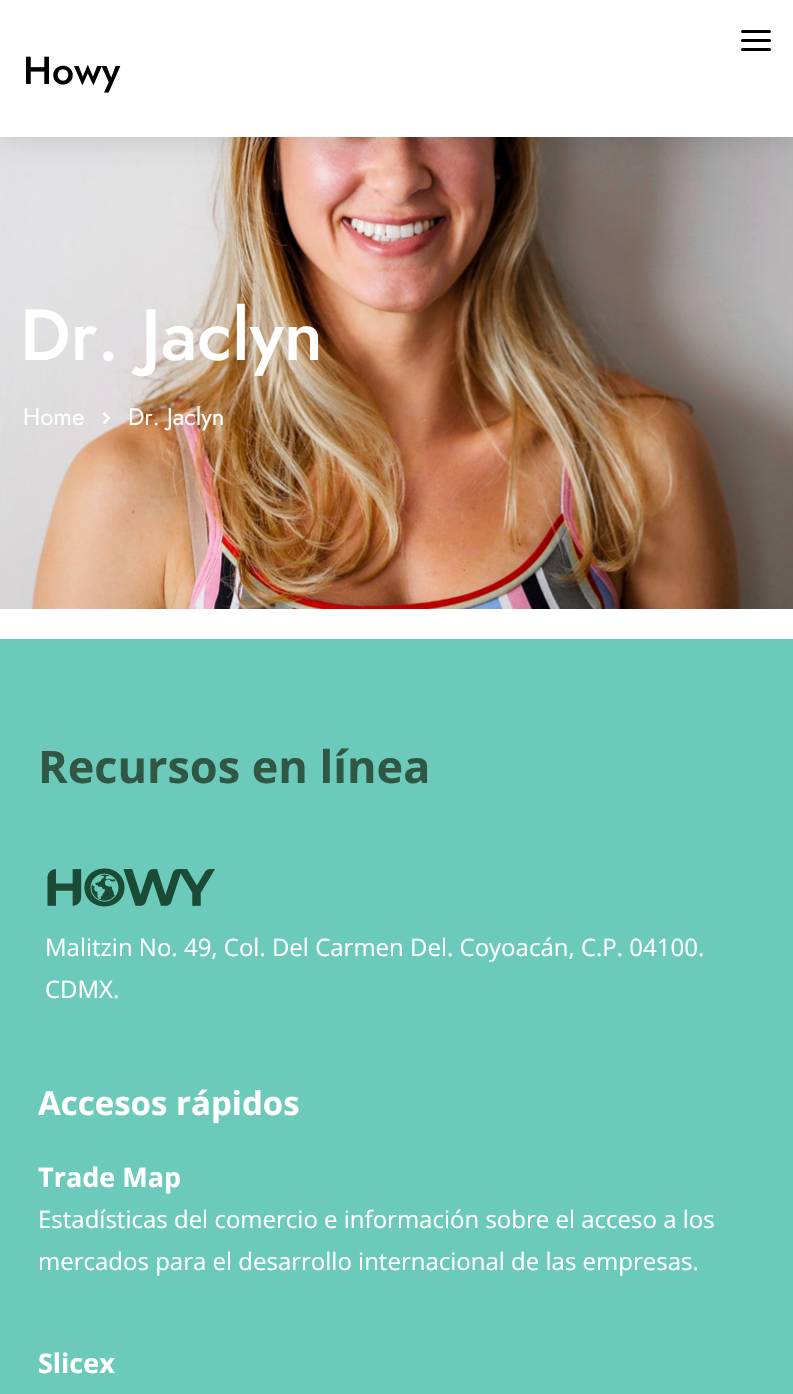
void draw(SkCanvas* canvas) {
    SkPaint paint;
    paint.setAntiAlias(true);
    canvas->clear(0xFFFFFFFF);
    canvas->drawImageRect(SkImages::DeferredFromEncodedData(SkData::MakeFromFileName("img1.png")), SkRect::MakeXYWH(0, 137, 793, 472), SkSamplingOptions());
    paint.setColor(0x26000000);
    paint.setMaskFilter(SkMaskFilter::MakeBlur(kNormal_SkBlurStyle, 15));
    canvas->drawRect(SkRect::MakeXYWH(0, 0, 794, 137), paint);
    paint.setMaskFilter(nullptr);
    paint.setColor(0xFFFFFFFF);
    canvas->drawRect(SkRect::MakeXYWH(0, 0, 793, 137), paint);
    paint.setColor(0xFF000000);
    canvas->drawRoundRect(SkRect::MakeXYWH(741, 39, 30, 3), 1.5f, 1.5f, paint);
    canvas->drawRoundRect(SkRect::MakeXYWH(741, 30, 30, 3), 1.5f, 1.5f, paint);
    canvas->drawRoundRect(SkRect::MakeXYWH(741, 48, 30, 3), 1.5f, 1.5f, paint);
    SkFont font1(fontMgr->matchFamilyStyle("Jost", SkFontStyle(500, SkFontStyle::kNormal_Width, SkFontStyle::kUpright_Slant)), 39);
    font1.setSubpixel(true);
    canvas->drawString("Howy", 23, 84, font1, paint);
    SkFont font2(fontMgr->matchFamilyStyle("Jost", SkFontStyle(500, SkFontStyle::kNormal_Width, SkFontStyle::kUpright_Slant)), 72);
    font2.setSubpixel(true);
    paint.setColor(0xFFFFFFFF);
    canvas->drawString("Dr. Jaclyn", 20, 360, font2, paint);
    SkFont font3(fontMgr->matchFamilyStyle("Jost", SkFontStyle::Normal()), 24);
    font3.setSubpixel(true);
    canvas->drawString("Home", 23, 425, font3, paint);
    canvas->drawImageRect(SkImages::DeferredFromEncodedData(SkData::MakeFromFileName("img2.png")), SkRect::MakeXYWH(102, 412, 9, 12), SkSamplingOptions());
    canvas->drawString("Dr. Jaclyn", 128, 425, font3, paint);
    paint.setColor(0xFF6BCABA);
    canvas->drawRect(SkRect::MakeXYWH(0, 639, 793, 755), paint);
    SkFont font4(fontMgr->matchFamilyStyle("Open Sans", SkFontStyle::Bold()), 45);
    font4.setSubpixel(true);
    paint.setColor(0xFF2F5743);
    canvas->drawString("Recursos en línea", 38, 783, font4, paint);
    canvas->drawImageRect(SkImages::DeferredFromEncodedData(SkData::MakeFromFileName("img3.png")), SkRect::MakeXYWH(47, 868, 168, 39), SkSamplingOptions());
    SkFont font5(fontMgr->matchFamilyStyle("Open Sans", SkFontStyle::Normal()), 24);
    font5.setSubpixel(true);
    paint.setColor(0xFFFFFFFF);
    canvas->drawString("Malitzin No. 49, Col. Del Carmen Del. Coyoacán, C.P. 04100.", 45, 956, font5, paint);
    canvas->drawString("CDMX.", 45, 998, font5, paint);
    SkFont font6(fontMgr->matchFamilyStyle("Open Sans", SkFontStyle::Bold()), 33);
    font6.setSubpixel(true);
    canvas->drawString("Accesos rápidos", 38, 1115, font6, paint);
    SkFont font7(fontMgr->matchFamilyStyle("Open Sans", SkFontStyle::Bold()), 27);
    font7.setSubpixel(true);
    canvas->drawString("Trade Map", 38, 1187, font7, paint);
    canvas->drawString("Estadísticas del comercio e información sobre el acceso a los", 38, 1228, font5, paint);
    canvas->drawString("mercados para el desarrollo internacional de las empresas.", 38, 1270, font5, paint);
    canvas->drawString("Slicex", 38, 1373, font7, paint);
}
